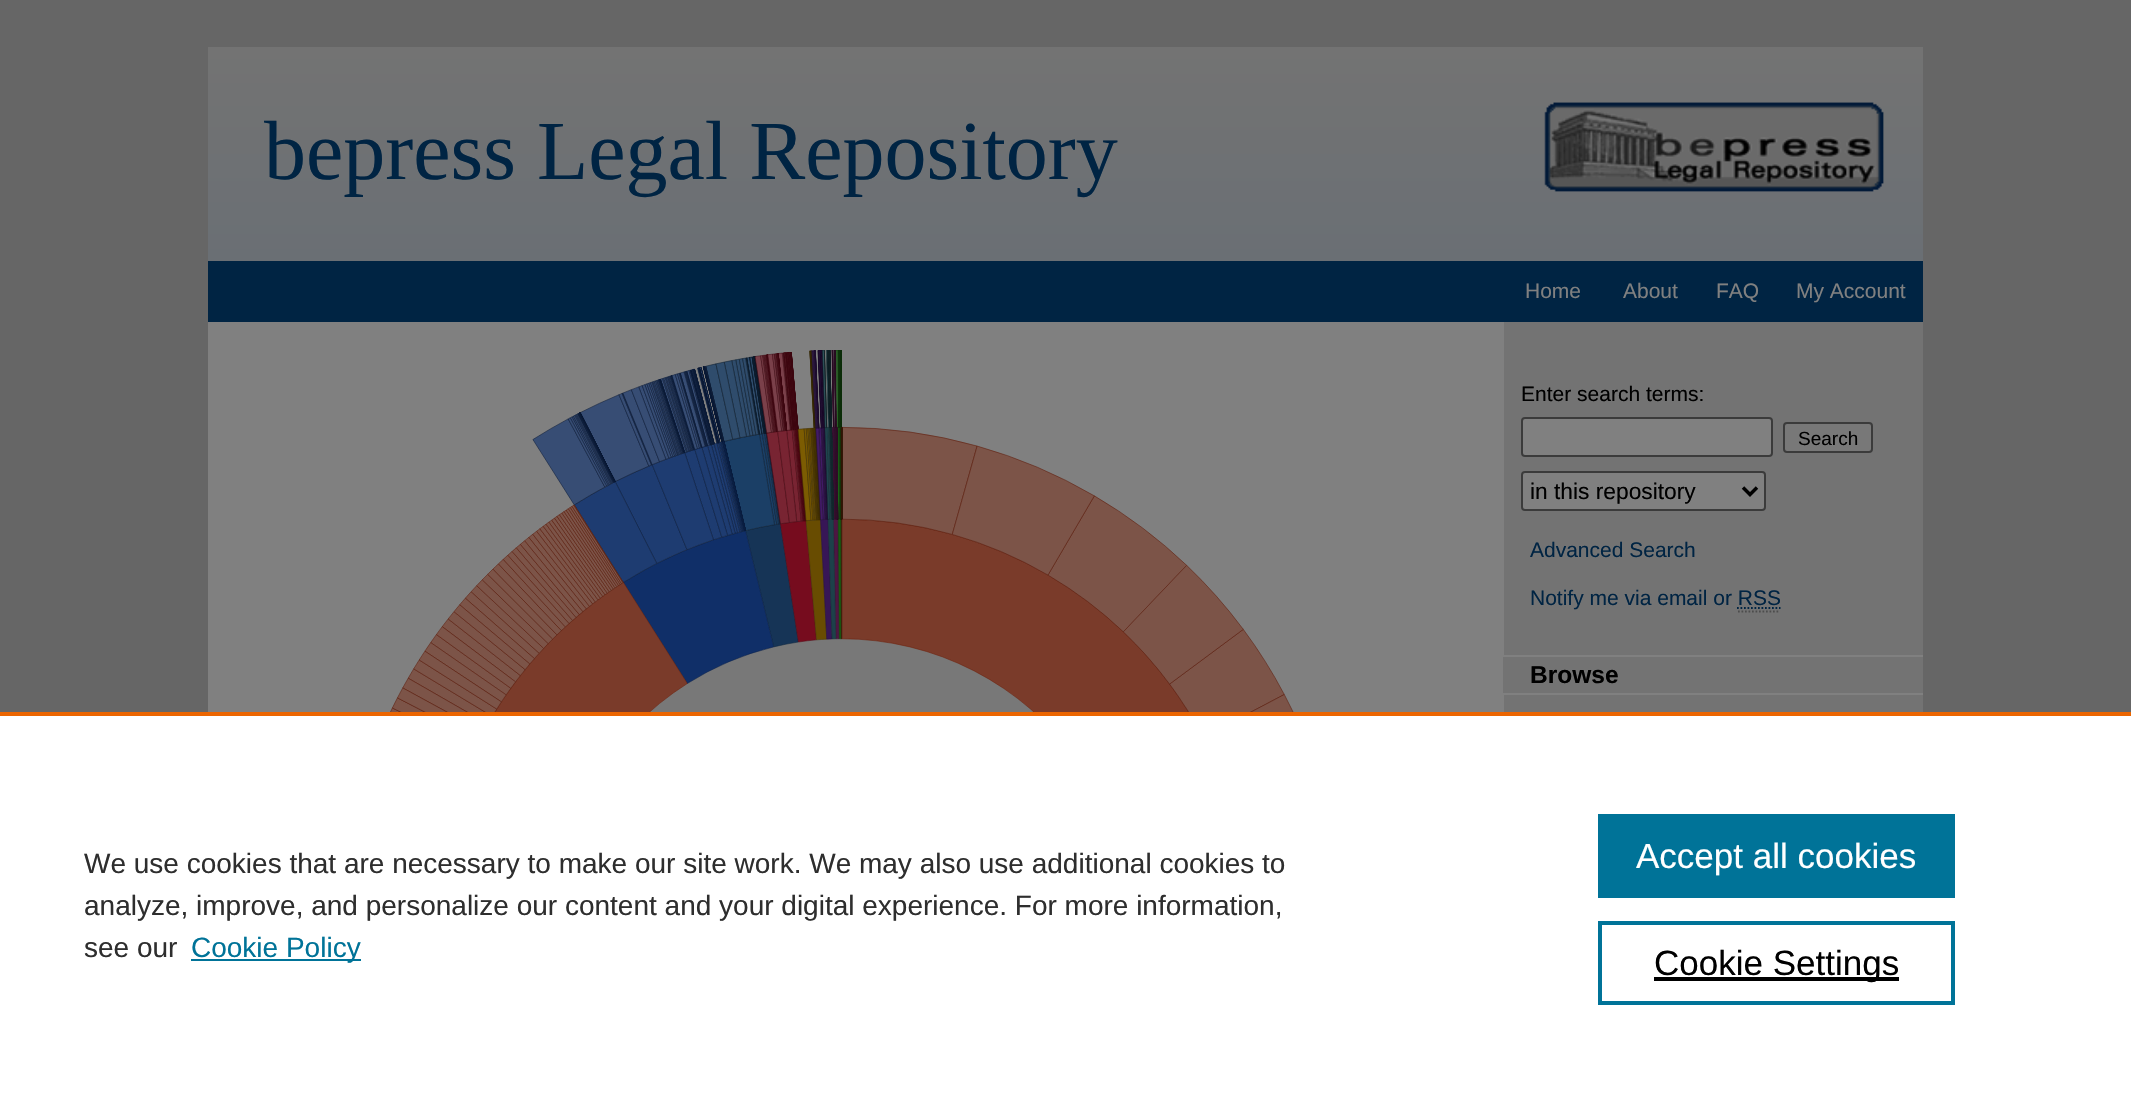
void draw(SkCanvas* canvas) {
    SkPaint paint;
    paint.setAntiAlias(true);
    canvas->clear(0xFF666666);
    {
        const SkColor colors[] = {0xFF737373, 0xFF6A6F74};
        const float stops[] = {0, 1};
        const SkPoint ends[] = {{1066, 47}, {1066, 261}};
        paint.setShader(SkGradientShader::MakeLinear(ends, colors, stops, 2, SkTileMode::kClamp));
        paint.setAlpha(255);
    }
    canvas->drawRect(SkRect::MakeXYWH(208, 47, 1715, 214), paint);
    SkFont font1(fontMgr->matchFamilyStyle("Liberation Serif", SkFontStyle::Normal()), 84);
    font1.setSubpixel(true);
    paint.setShader(nullptr);
    paint.setColor(0xFF002443);
    canvas->drawString("bepress Legal Repository", 264, 179, font1, paint);
    canvas->drawImageRect(SkImages::DeferredFromEncodedData(SkData::MakeFromFileName("img1.png")), SkRect::MakeXYWH(1544, 102, 340, 90), SkSamplingOptions());
    canvas->drawRect(SkRect::MakeXYWH(208, 261, 1715, 61), paint);
    SkFont font2(fontMgr->matchFamilyStyle("Liberation Sans", SkFontStyle::Normal()), 21);
    font2.setSubpixel(true);
    paint.setColor(0xFF808080);
    canvas->drawString("Home", 1525, 298, font2, paint);
    canvas->drawString("About", 1623, 298, font2, paint);
    canvas->drawString("FAQ", 1716, 298, font2, paint);
    canvas->drawString("My Account", 1796, 298, font2, paint);
    paint.setColor(0xFF737373);
    canvas->drawRect(SkRect::MakeXYWH(1504, 322, 419, 390), paint);
    paint.setColor(0xFF808080);
    canvas->drawRect(SkRect::MakeXYWH(208, 322, 1296, 390), paint);
    canvas->drawImageRect(SkImages::DeferredFromEncodedData(SkData::MakeFromFileName("img2.png")), SkRect::MakeXYWH(390, 350, 904, 362), SkSamplingOptions());
    paint.setColor(0xFF000000);
    canvas->drawString("Enter search terms:", 1521, 401, font2, paint);
    paint.setColor(0xFF808080);
    canvas->drawRoundRect(SkRect::MakeXYWH(1522, 418, 250, 38), 3, 3, paint);
    paint.setStyle(SkPaint::kStroke_Style);
    paint.setStrokeWidth(2);
    paint.setColor(0xFF3B3B3B);
    canvas->drawRoundRect(SkRect::MakeXYWH(1522, 418, 250, 38), 3, 3, paint);
    paint.setStyle(SkPaint::kFill_Style);
    paint.setColor(0xFF787878);
    canvas->drawRoundRect(SkRect::MakeXYWH(1784, 423, 88, 29), 3, 3, paint);
    paint.setStyle(SkPaint::kStroke_Style);
    paint.setColor(0xFF3B3B3B);
    canvas->drawRoundRect(SkRect::MakeXYWH(1784, 423, 88, 29), 3, 3, paint);
    SkFont font3(fontMgr->matchFamilyStyle("Liberation Sans", SkFontStyle::Normal()), 19);
    font3.setSubpixel(true);
    paint.setStyle(SkPaint::kFill_Style);
    paint.setColor(0xFF000000);
    canvas->drawString("Search", 1798, 445, font3, paint);
    paint.setColor(0xFF808080);
    canvas->drawRoundRect(SkRect::MakeXYWH(1522, 472, 243, 38), 3, 3, paint);
    paint.setStyle(SkPaint::kStroke_Style);
    paint.setColor(0xFF3B3B3B);
    canvas->drawRoundRect(SkRect::MakeXYWH(1522, 472, 243, 38), 3, 3, paint);
    paint.setStrokeWidth(3.5f);
    paint.setColor(0xFF000000);
    canvas->drawPath(SkPathBuilder().moveTo(1743, 487.5f).lineTo(1750, 494.5f).lineTo(1757, 487.5f).detach(), paint);
    SkFont font4(fontMgr->matchFamilyStyle("Liberation Sans", SkFontStyle::Normal()), 22.75f);
    font4.setSubpixel(true);
    paint.setStyle(SkPaint::kFill_Style);
    canvas->drawString("in this repository", 1530, 499, font4, paint);
    paint.setColor(0xFF002443);
    canvas->drawString("Advanced Search", 1530, 557, font2, paint);
    canvas->drawString("Notify me via email or RSS", 1530, 605, font2, paint);
    paint.setStyle(SkPaint::kStroke_Style);
    paint.setStrokeWidth(1.8f);
    paint.setPathEffect(SkDashPathEffect::Make({{1.75f, 1.75f}}, 0));
    canvas->drawPath(SkPathBuilder().moveTo(1737, 608).lineTo(1780.5f, 608).detach(), paint);
    paint.setPathEffect(nullptr);
    paint.setColor(0xFF4D4D4D);
    paint.setPathEffect(SkDashPathEffect::Make({{1.75f, 1.75f}}, 0));
    canvas->drawPath(SkPathBuilder().moveTo(1738, 611.5f).lineTo(1780, 611.5f).detach(), paint);
    paint.setPathEffect(nullptr);
    paint.setStyle(SkPaint::kFill_Style);
    paint.setColor(0xFF737373);
    canvas->drawRect(SkRect::MakeXYWH(1503, 657, 1, 36), paint);
    paint.setColor(0xFF808080);
    canvas->drawRect(SkRect::MakeXYWH(1503, 655, 420, 2), paint);
    canvas->drawRect(SkRect::MakeXYWH(1503, 693, 420, 2), paint);
    SkFont font5(fontMgr->matchFamilyStyle("Liberation Sans", SkFontStyle::Bold()), 24.5f);
    font5.setSubpixel(true);
    paint.setColor(0xFF000000);
    canvas->drawString("Browse", 1530, 683, font5, paint);
    paint.setColor(0xFFFFFFFF);
    canvas->drawRect(SkRect::MakeXYWH(0, 716, 2131, 381), paint);
    paint.setColor(0xFFEB6500);
    canvas->drawRect(SkRect::MakeXYWH(0, 712, 2131, 4), paint);
    SkFont font6(fontMgr->matchFamilyStyle("Liberation Sans", SkFontStyle::Normal()), 28);
    font6.setSubpixel(true);
    paint.setColor(0xFF2E2E2E);
    canvas->drawString("We use cookies that are necessary to make our site work. We may also use additional cookies to", 84, 873, font6, paint);
    canvas->drawString("analyze, improve, and personalize our content and your digital experience. For more information,", 84, 915, font6, paint);
    canvas->drawString("see our", 84, 957, font6, paint);
    paint.setColor(0xFF007398);
    canvas->drawRect(SkRect::MakeXYWH(191, 959, 170, 2), paint);
    canvas->drawString("Cookie Policy", 191, 957, font6, paint);
    canvas->drawRect(SkRect::MakeXYWH(1598, 814, 357, 84), paint);
    SkFont font7(fontMgr->matchFamilyStyle("Liberation Sans", SkFontStyle::Normal()), 35);
    font7.setSubpixel(true);
    paint.setColor(0xFFFFFFFF);
    canvas->drawString("Accept all cookies", 1636, 868, font7, paint);
    paint.setStyle(SkPaint::kStroke_Style);
    paint.setStrokeWidth(4);
    paint.setColor(0xFF007398);
    canvas->drawRect(SkRect::MakeXYWH(1600, 923, 353, 80), paint);
    paint.setStyle(SkPaint::kFill_Style);
    paint.setColor(0xFF000000);
    canvas->drawRect(SkRect::MakeXYWH(1654, 977, 245, 4), paint);
    canvas->drawString("Cookie Settings", 1654, 975, font7, paint);
}
